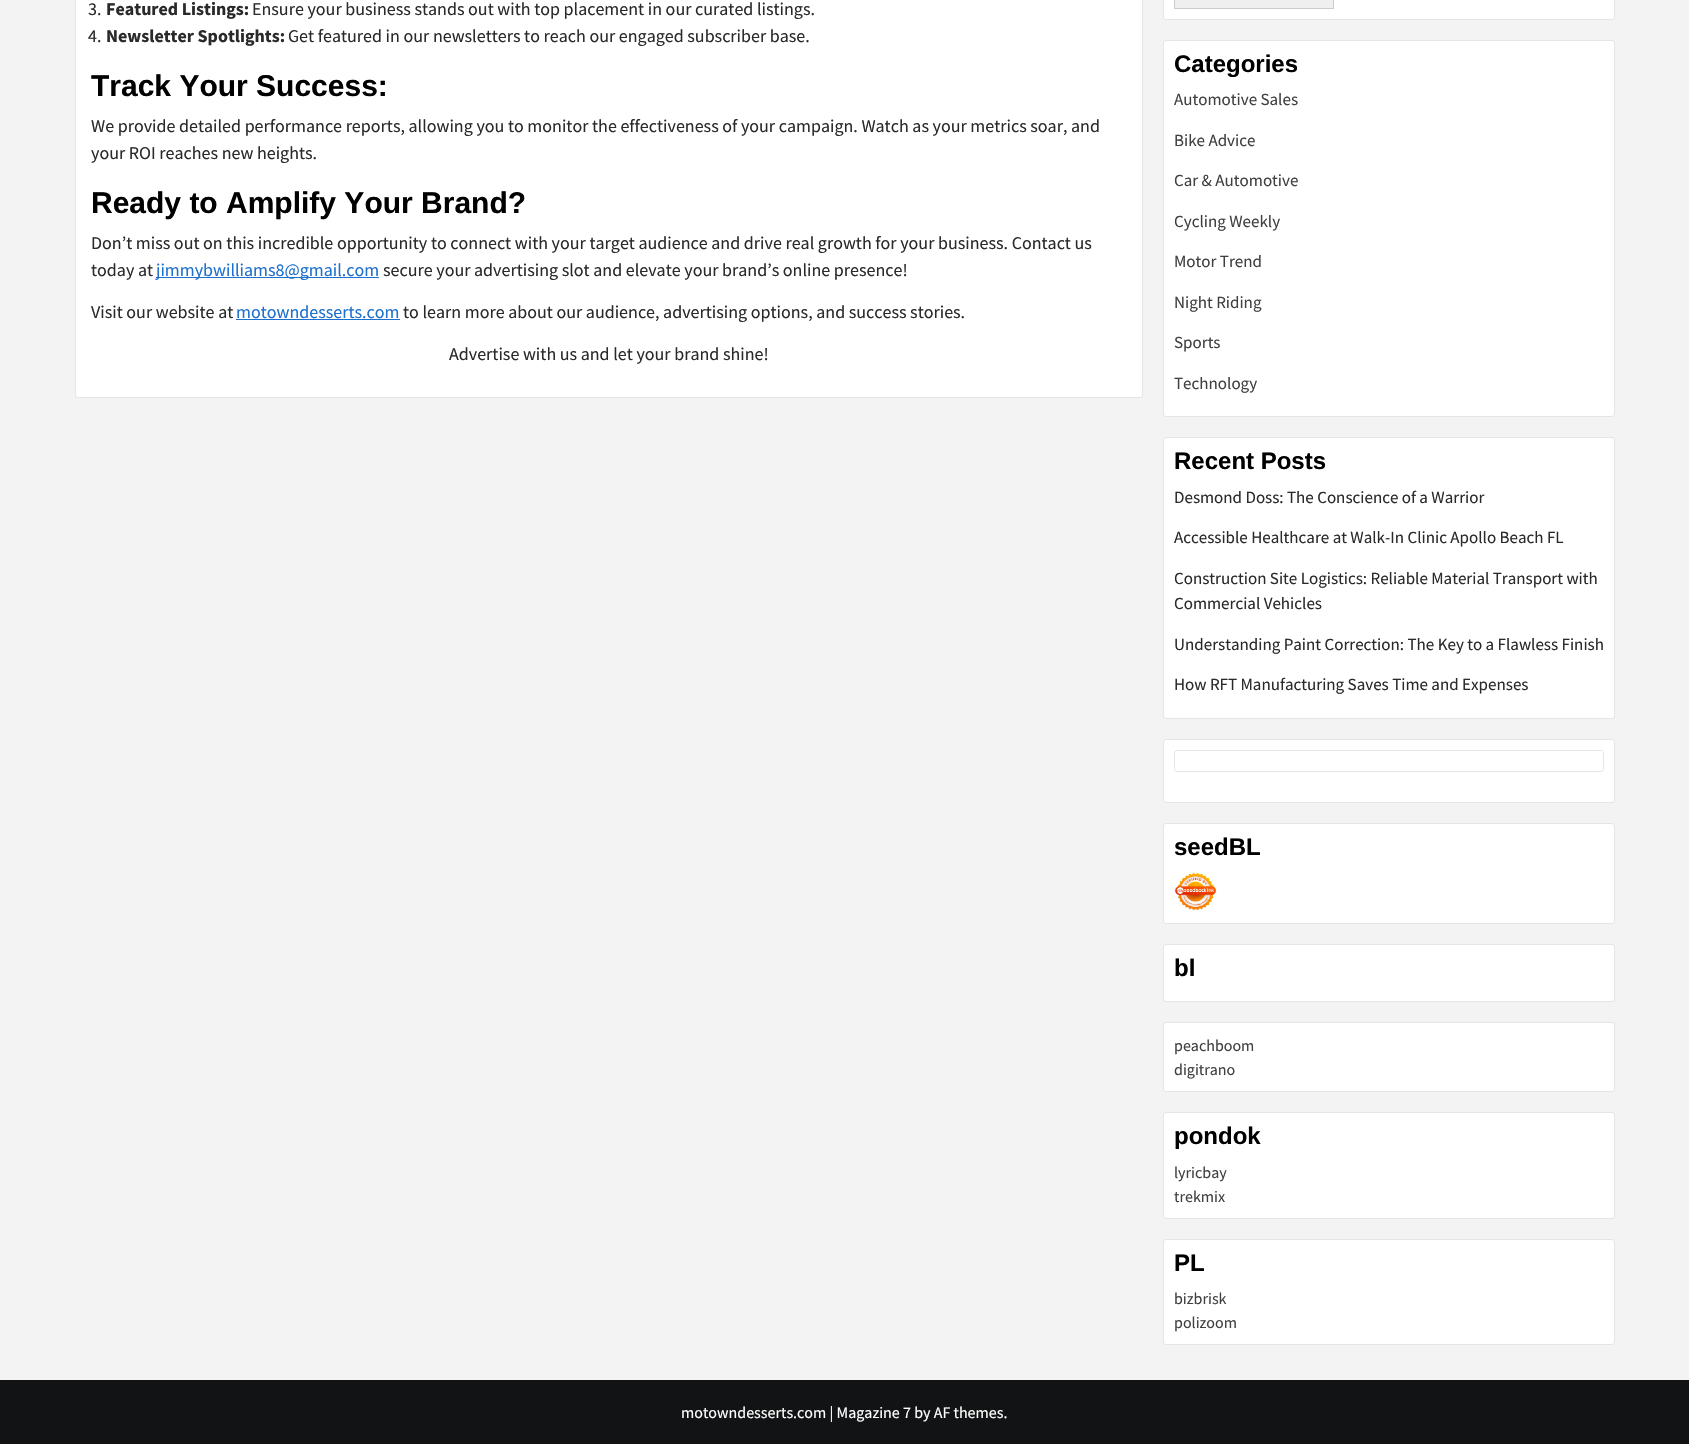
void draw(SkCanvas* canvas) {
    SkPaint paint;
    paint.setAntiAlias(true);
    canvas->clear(0xFFF3F3F3);
    paint.setColor(0xFFFFFFFF);
    canvas->drawRoundRect(SkRect::MakeXYWH(75, -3, 1068, 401), 3, 3, paint);
    paint.setStyle(SkPaint::kStroke_Style);
    paint.setStrokeWidth(1);
    paint.setColor(0x1A000101);
    canvas->drawRoundRect(SkRect::MakeXYWH(75.5f, -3.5f, 1067, 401), 2.5f, 2.5f, paint);
    SkFont font1(fontMgr->matchFamilyStyle("Source Sans Pro", SkFontStyle::Normal()), 18);
    font1.setSubpixel(true);
    paint.setStyle(SkPaint::kFill_Style);
    paint.setColor(0xFF2A2A2A);
    canvas->drawString("3.", 88, 15, font1, paint);
    SkFont font2(fontMgr->matchFamilyStyle("Source Sans Pro", SkFontStyle::Bold()), 18);
    font2.setSubpixel(true);
    canvas->drawString("Featured Listings:", 106, 15, font2, paint);
    canvas->drawString("Ensure your business stands out with top placement in our curated listings.", 252, 15, font1, paint);
    canvas->drawString("4.", 88, 42, font1, paint);
    canvas->drawString("Newsletter Spotlights:", 106, 42, font2, paint);
    canvas->drawString("Get featured in our newsletters to reach our engaged subscriber base.", 288, 42, font1, paint);
    SkFont font3(fontMgr->matchFamilyStyle("Liberation Sans", SkFontStyle::Bold()), 30);
    font3.setSubpixel(true);
    paint.setColor(0xFF000000);
    canvas->drawString("Track Your Success:", 91, 96, font3, paint);
    paint.setColor(0xFF2A2A2A);
    canvas->drawString("We provide detailed performance reports, allowing you to monitor the effectiveness of your campaign. Watch as your metrics soar, and", 91, 132, font1, paint);
    canvas->drawString("your ROI reaches new heights.", 91, 159, font1, paint);
    paint.setColor(0xFF000000);
    canvas->drawString("Ready to Amplify Your Brand?", 91, 213, font3, paint);
    paint.setColor(0xFF2A2A2A);
    canvas->drawString("Don’t miss out on this incredible opportunity to connect with your target audience and drive real growth for your business. Contact us", 91, 249, font1, paint);
    canvas->drawString("today at", 91, 276, font1, paint);
    paint.setColor(0xFF1E70CD);
    canvas->drawRect(SkRect::MakeXYWH(156, 277, 223, 1), paint);
    canvas->drawString("jimmybwilliams8@gmail.com", 156, 276, font1, paint);
    paint.setColor(0xFF2A2A2A);
    canvas->drawString("secure your advertising slot and elevate your brand’s online presence!", 383, 276, font1, paint);
    canvas->drawString("Visit our website at", 91, 318, font1, paint);
    paint.setColor(0xFF1E70CD);
    canvas->drawString("motowndesserts.com", 236, 318, font1, paint);
    canvas->drawRect(SkRect::MakeXYWH(236, 319, 164, 1), paint);
    paint.setColor(0xFF2A2A2A);
    canvas->drawString("to learn more about our audience, advertising options, and success stories.", 403, 318, font1, paint);
    canvas->drawString("Advertise with us and let your brand shine!", 449, 360, font1, paint);
    paint.setColor(0xFFFFFFFF);
    canvas->drawRoundRect(SkRect::MakeXYWH(1163, -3, 452, 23), 3, 3, paint);
    paint.setStyle(SkPaint::kStroke_Style);
    paint.setColor(0x1A000101);
    canvas->drawRoundRect(SkRect::MakeXYWH(1163.5f, -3.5f, 451, 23), 2.5f, 2.5f, paint);
    paint.setStyle(SkPaint::kFill_Style);
    paint.setColor(0xFFEFEFEF);
    canvas->drawRect(SkRect::MakeXYWH(1174.5f, -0.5f, 159, 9), paint);
    paint.setStyle(SkPaint::kStroke_Style);
    paint.setColor(0xFFCCCCCC);
    canvas->drawRect(SkRect::MakeXYWH(1174.5f, -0.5f, 159, 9), paint);
    paint.setStyle(SkPaint::kFill_Style);
    paint.setColor(0xFFFFFFFF);
    canvas->drawRoundRect(SkRect::MakeXYWH(1163, 40, 452, 377), 3, 3, paint);
    paint.setStyle(SkPaint::kStroke_Style);
    paint.setColor(0x1A000101);
    canvas->drawRoundRect(SkRect::MakeXYWH(1163.5f, 40.5f, 451, 376), 2.5f, 2.5f, paint);
    SkFont font4(fontMgr->matchFamilyStyle("Liberation Sans", SkFontStyle::Bold()), 24);
    font4.setSubpixel(true);
    paint.setStyle(SkPaint::kFill_Style);
    paint.setColor(0xFF000000);
    canvas->drawString("Categories", 1174, 72, font4, paint);
    SkFont font5(fontMgr->matchFamilyStyle("Source Sans Pro", SkFontStyle::Normal()), 17);
    font5.setSubpixel(true);
    paint.setColor(0xFF404040);
    canvas->drawString("Automotive Sales", 1174, 105, font5, paint);
    canvas->drawString("Bike Advice", 1174, 146, font5, paint);
    canvas->drawString("Car & Automotive", 1174, 186, font5, paint);
    canvas->drawString("Cycling Weekly", 1174, 227, font5, paint);
    canvas->drawString("Motor Trend", 1174, 267, font5, paint);
    canvas->drawString("Night Riding", 1174, 308, font5, paint);
    canvas->drawString("Sports", 1174, 348, font5, paint);
    canvas->drawString("Technology", 1174, 389, font5, paint);
    paint.setColor(0xFFFFFFFF);
    canvas->drawRoundRect(SkRect::MakeXYWH(1163, 437, 452, 282), 3, 3, paint);
    paint.setStyle(SkPaint::kStroke_Style);
    paint.setColor(0x1A000101);
    canvas->drawRoundRect(SkRect::MakeXYWH(1163.5f, 437.5f, 451, 281), 2.5f, 2.5f, paint);
    paint.setStyle(SkPaint::kFill_Style);
    paint.setColor(0xFF000000);
    canvas->drawString("Recent Posts", 1174, 469, font4, paint);
    paint.setColor(0xFF2A2A2A);
    canvas->drawString("Desmond Doss: The Conscience of a Warrior", 1174, 503, font5, paint);
    canvas->drawString("Accessible Healthcare at Walk-In Clinic Apollo Beach FL", 1174, 543, font5, paint);
    canvas->drawString("Construction Site Logistics: Reliable Material Transport with", 1174, 584, font5, paint);
    canvas->drawString("Commercial Vehicles", 1174, 609, font5, paint);
    canvas->drawString("Understanding Paint Correction: The Key to a Flawless Finish", 1174, 650, font5, paint);
    canvas->drawString("How RFT Manufacturing Saves Time and Expenses", 1174, 690, font5, paint);
    paint.setColor(0xFFFFFFFF);
    canvas->drawRoundRect(SkRect::MakeXYWH(1163, 739, 452, 64), 3, 3, paint);
    paint.setStyle(SkPaint::kStroke_Style);
    paint.setColor(0x1A000101);
    canvas->drawRoundRect(SkRect::MakeXYWH(1163.5f, 739.5f, 451, 63), 2.5f, 2.5f, paint);
    paint.setColor(0xFFE6E6E6);
    canvas->drawRoundRect(SkRect::MakeXYWH(1174.5f, 750.5f, 429, 21), 2.5f, 2.5f, paint);
    paint.setStyle(SkPaint::kFill_Style);
    paint.setColor(0xFFFFFFFF);
    canvas->drawRoundRect(SkRect::MakeXYWH(1163, 823, 452, 101), 3, 3, paint);
    paint.setStyle(SkPaint::kStroke_Style);
    paint.setColor(0x1A000101);
    canvas->drawRoundRect(SkRect::MakeXYWH(1163.5f, 823.5f, 451, 100), 2.5f, 2.5f, paint);
    paint.setStyle(SkPaint::kFill_Style);
    paint.setColor(0xFF000000);
    canvas->drawString("seedBL", 1174, 855, font4, paint);
    canvas->drawImageRect(SkImages::DeferredFromEncodedData(SkData::MakeFromFileName("img1.png")), SkRect::MakeXYWH(1174, 872, 43, 39), SkSamplingOptions());
    paint.setColor(0xFFFFFFFF);
    canvas->drawRoundRect(SkRect::MakeXYWH(1163, 944, 452, 58), 3, 3, paint);
    paint.setStyle(SkPaint::kStroke_Style);
    paint.setColor(0x1A000101);
    canvas->drawRoundRect(SkRect::MakeXYWH(1163.5f, 944.5f, 451, 57), 2.5f, 2.5f, paint);
    paint.setStyle(SkPaint::kFill_Style);
    paint.setColor(0xFF000000);
    canvas->drawString("bl", 1174, 976, font4, paint);
    paint.setColor(0xFFFFFFFF);
    canvas->drawRoundRect(SkRect::MakeXYWH(1163, 1022, 452, 70), 3, 3, paint);
    paint.setStyle(SkPaint::kStroke_Style);
    paint.setColor(0x1A000101);
    canvas->drawRoundRect(SkRect::MakeXYWH(1163.5f, 1022.5f, 451, 69), 2.5f, 2.5f, paint);
    SkFont font6(fontMgr->matchFamilyStyle("Source Sans Pro", SkFontStyle::Normal()), 16);
    font6.setSubpixel(true);
    paint.setStyle(SkPaint::kFill_Style);
    paint.setColor(0xFF404040);
    canvas->drawString("peachboom", 1174, 1051, font6, paint);
    canvas->drawString("digitrano", 1174, 1075, font6, paint);
    paint.setColor(0xFFFFFFFF);
    canvas->drawRoundRect(SkRect::MakeXYWH(1163, 1112, 452, 107), 3, 3, paint);
    paint.setStyle(SkPaint::kStroke_Style);
    paint.setColor(0x1A000101);
    canvas->drawRoundRect(SkRect::MakeXYWH(1163.5f, 1112.5f, 451, 106), 2.5f, 2.5f, paint);
    paint.setStyle(SkPaint::kFill_Style);
    paint.setColor(0xFF000000);
    canvas->drawString("pondok", 1174, 1144, font4, paint);
    paint.setColor(0xFF404040);
    canvas->drawString("lyricbay", 1174, 1178, font6, paint);
    canvas->drawString("trekmix", 1174, 1202, font6, paint);
    paint.setColor(0xFFFFFFFF);
    canvas->drawRoundRect(SkRect::MakeXYWH(1163, 1239, 452, 106), 3, 3, paint);
    paint.setStyle(SkPaint::kStroke_Style);
    paint.setColor(0x1A000101);
    canvas->drawRoundRect(SkRect::MakeXYWH(1163.5f, 1239.5f, 451, 105), 2.5f, 2.5f, paint);
    paint.setStyle(SkPaint::kFill_Style);
    paint.setColor(0xFF000000);
    canvas->drawString("PL", 1174, 1271, font4, paint);
    paint.setColor(0xFF404040);
    canvas->drawString("bizbrisk", 1174, 1304, font6, paint);
    canvas->drawString("polizoom", 1174, 1328, font6, paint);
    paint.setColor(0xFF121314);
    canvas->drawRect(SkRect::MakeXYWH(0, 1380, 1689, 64), paint);
    paint.setColor(0xFFFFFFFF);
    canvas->drawString("motowndesserts.com | Magazine 7 by AF themes.", 681, 1418, font6, paint);
}
